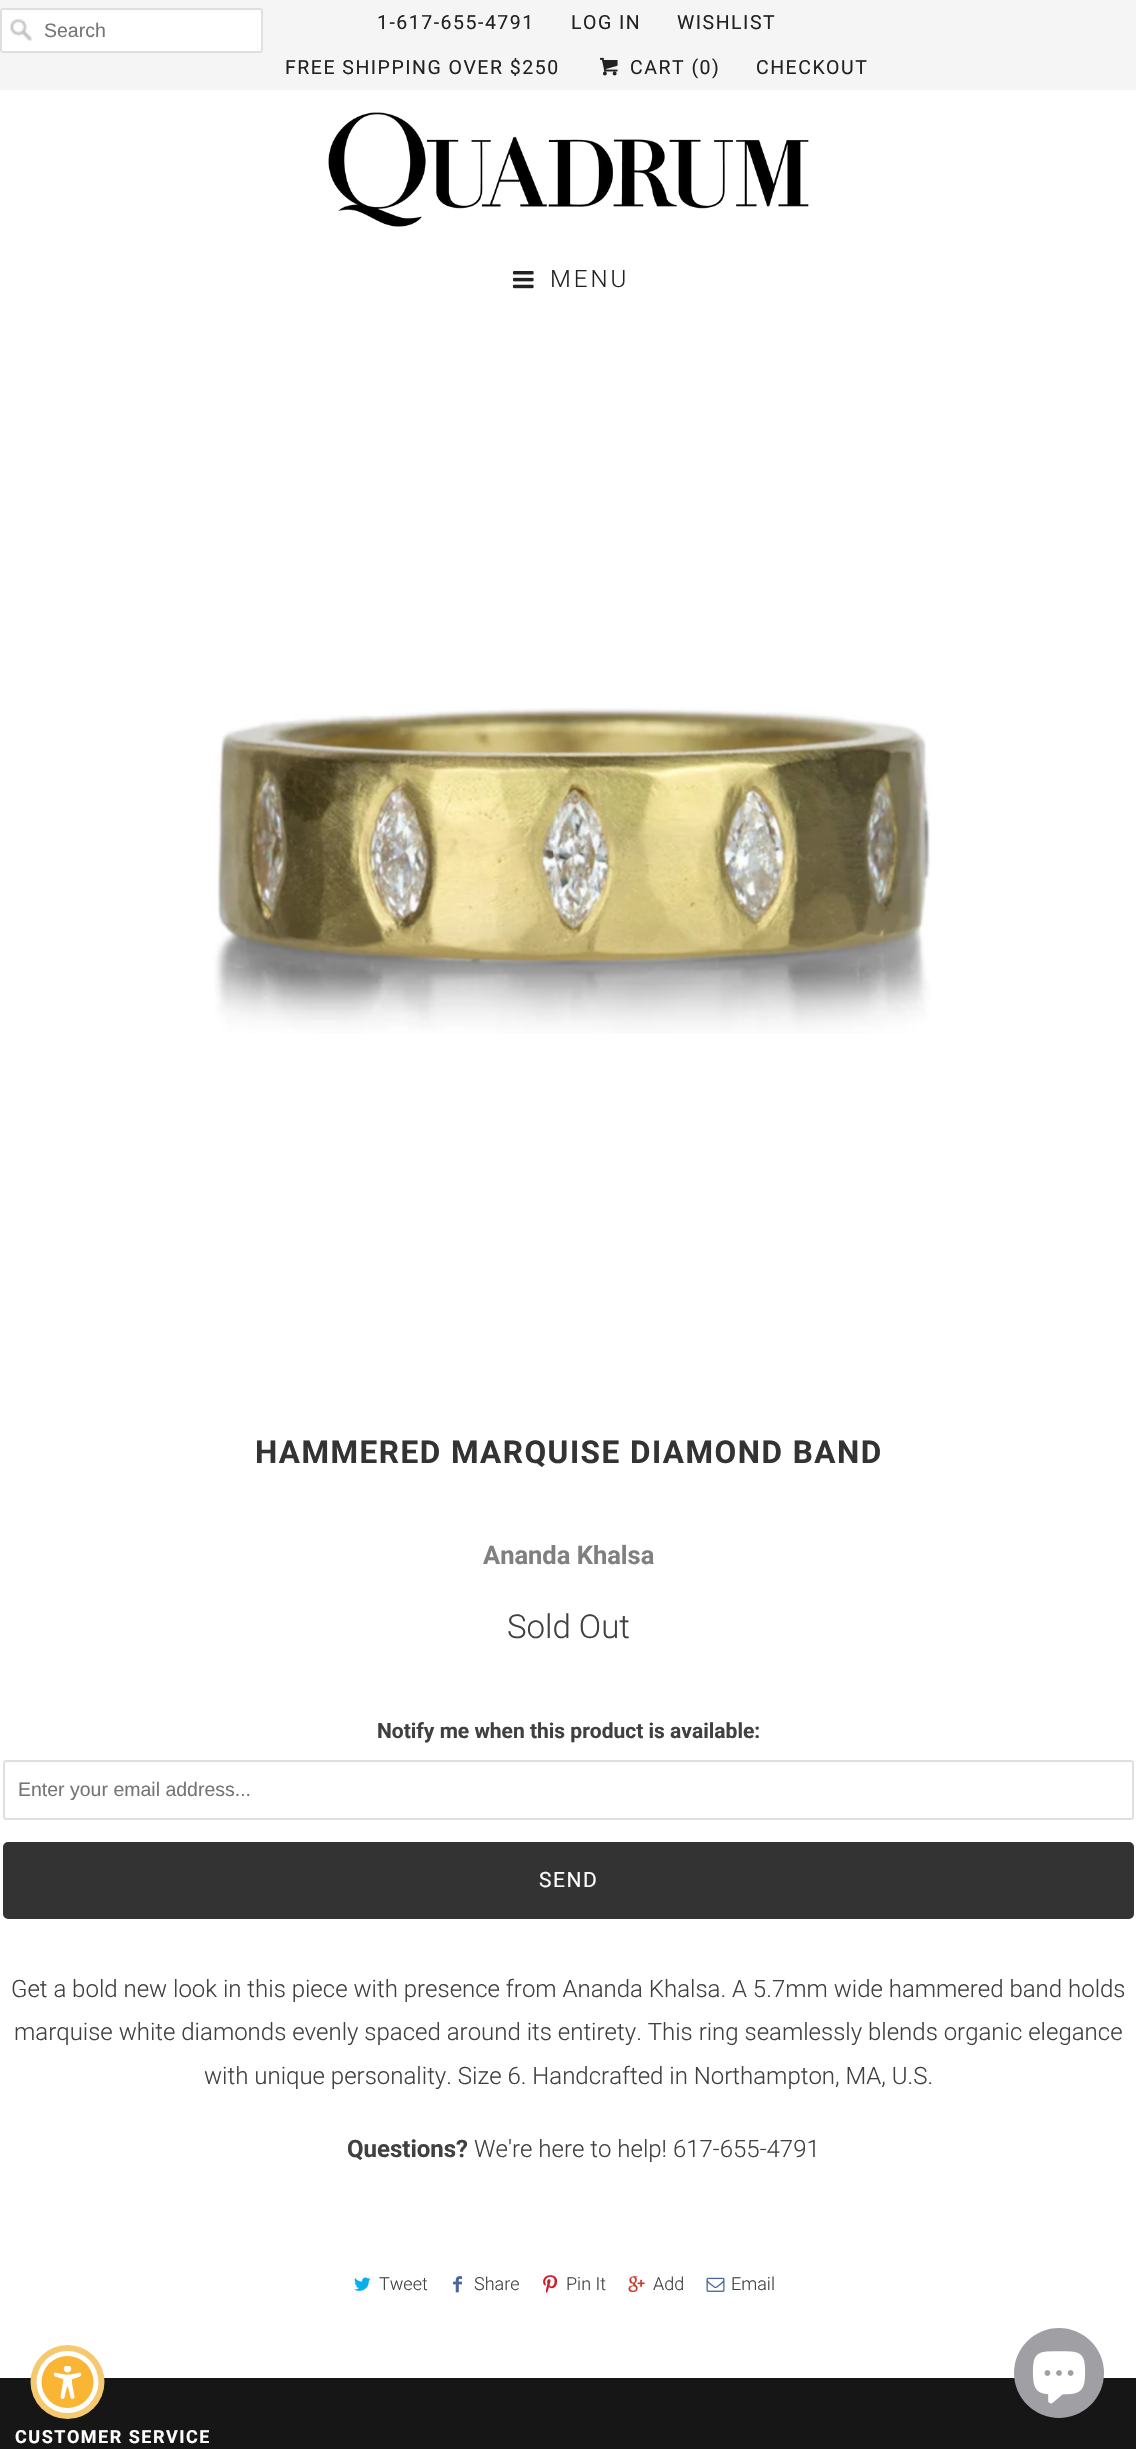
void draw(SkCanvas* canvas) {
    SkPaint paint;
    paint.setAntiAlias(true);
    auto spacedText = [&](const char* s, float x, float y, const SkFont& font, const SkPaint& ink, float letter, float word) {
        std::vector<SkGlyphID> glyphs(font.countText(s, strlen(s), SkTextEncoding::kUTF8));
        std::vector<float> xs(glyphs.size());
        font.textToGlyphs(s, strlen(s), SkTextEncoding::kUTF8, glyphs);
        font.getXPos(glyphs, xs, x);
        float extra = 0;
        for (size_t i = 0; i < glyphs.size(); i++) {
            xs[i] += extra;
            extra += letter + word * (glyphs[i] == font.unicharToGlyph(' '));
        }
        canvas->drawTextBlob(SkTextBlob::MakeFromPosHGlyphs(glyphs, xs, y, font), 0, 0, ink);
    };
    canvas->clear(0xFFFFFFFF);
    paint.setColor(0xFFF5F5F5);
    canvas->drawRect(SkRect::MakeXYWH(0, 0, 1136, 90), paint);
    paint.setColor(0xFFFFFFFF);
    canvas->drawRoundRect(SkRect::MakeXYWH(0, 8, 263, 45), 3, 3, paint);
    canvas->drawImageRect(SkImages::DeferredFromEncodedData(SkData::MakeFromFileName("img1.png")), SkRect::MakeXYWH(10, 19, 22, 22), SkSamplingOptions());
    paint.setStyle(SkPaint::kStroke_Style);
    paint.setStrokeWidth(2);
    paint.setColor(0xFFDFDFDF);
    canvas->drawRoundRect(SkRect::MakeXYWH(1, 9, 261, 43), 2, 2, paint);
    SkFont font1(fontMgr->matchFamilyStyle("Liberation Sans", SkFontStyle::Normal()), 19.5f);
    font1.setSubpixel(true);
    paint.setStyle(SkPaint::kFill_Style);
    paint.setColor(0xFF757575);
    canvas->drawString("Search", 44, 37, font1, paint);
    SkFont font2(fontMgr->matchFamilyStyle("Roboto", SkFontStyle::Normal()), 19.5f);
    font2.setSubpixel(true);
    paint.setColor(0xFF222222);
    spacedText("1-617-655-4791", 377, 29, font2, paint, 1.5f, 0);
    spacedText("LOG IN", 571, 29, font2, paint, 1.5f, 0);
    spacedText("WISHLIST", 677, 29, font2, paint, 1.5f, 0);
    spacedText("FREE SHIPPING OVER $250", 285, 74, font2, paint, 1.5f, 0);
    canvas->drawImageRect(SkImages::DeferredFromEncodedData(SkData::MakeFromFileName("img2.png")), SkRect::MakeXYWH(600, 57, 18, 19), SkSamplingOptions());
    spacedText("CART (0)", 630, 74, font2, paint, 1.5f, 0);
    spacedText("CHECKOUT", 756, 74, font2, paint, 1.5f, 0);
    canvas->drawImageRect(SkImages::DeferredFromEncodedData(SkData::MakeFromFileName("img3.png")), SkRect::MakeXYWH(328, 112, 481, 115), SkSamplingOptions());
    canvas->drawImageRect(SkImages::DeferredFromEncodedData(SkData::MakeFromFileName("img4.png")), SkRect::MakeXYWH(513, 271, 21, 18), SkSamplingOptions());
    SkFont font3(fontMgr->matchFamilyStyle("Roboto", SkFontStyle(300, SkFontStyle::kNormal_Width, SkFontStyle::kUpright_Slant)), 24);
    font3.setSubpixel(true);
    spacedText("MENU", 550, 287, font3, paint, 3, 0);
    canvas->drawImageRect(SkImages::DeferredFromEncodedData(SkData::MakeFromFileName("img5.png")), SkRect::MakeXYWH(214, 707, 717, 327), SkSamplingOptions());
    SkFont font4(fontMgr->matchFamilyStyle("Roboto", SkFontStyle::Bold()), 31.5f);
    font4.setSubpixel(true);
    paint.setColor(0xFF333333);
    spacedText("HAMMERED MARQUISE DIAMOND BAND", 255, 1463, font4, paint, 1.5f, 0);
    SkFont font5(fontMgr->matchFamilyStyle("Roboto", SkFontStyle::Bold()), 25.5f);
    font5.setSubpixel(true);
    paint.setColor(0xFF808080);
    canvas->drawString("Ananda Khalsa", 483, 1564, font5, paint);
    SkFont font6(fontMgr->matchFamilyStyle("Roboto", SkFontStyle(300, SkFontStyle::kNormal_Width, SkFontStyle::kUpright_Slant)), 33);
    font6.setSubpixel(true);
    paint.setColor(0xFF404040);
    canvas->drawString("Sold Out", 507, 1638, font6, paint);
    SkFont font7(fontMgr->matchFamilyStyle("Roboto", SkFontStyle::Bold()), 21);
    font7.setSubpixel(true);
    canvas->drawString("Notify me when this product is available:", 377, 1738, font7, paint);
    paint.setStyle(SkPaint::kStroke_Style);
    paint.setColor(0xFFDFDFDF);
    canvas->drawRoundRect(SkRect::MakeXYWH(4, 1761, 1129, 58), 2, 2, paint);
    paint.setStyle(SkPaint::kFill_Style);
    paint.setColor(0xFF757575);
    canvas->drawString("Enter your email address...", 18, 1796, font1, paint);
    paint.setColor(0xFF333333);
    canvas->drawRoundRect(SkRect::MakeXYWH(4, 1843, 1129, 75), 4, 4, paint);
    paint.setStyle(SkPaint::kStroke_Style);
    canvas->drawRoundRect(SkRect::MakeXYWH(4, 1843, 1129, 75), 4, 4, paint);
    SkFont font8(fontMgr->matchFamilyStyle("Roboto", SkFontStyle::Normal()), 21);
    font8.setSubpixel(true);
    paint.setStyle(SkPaint::kFill_Style);
    paint.setColor(0xFFFEFFFD);
    spacedText("SEND", 539, 1887, font8, paint, 1.5f, 0);
    paint.setColor(0xFF404040);
    canvas->drawString("Get a bold new look in this piece with presence from Ananda Khalsa. A 5.7mm wide hammered band holds", 11, 1997, font3, paint);
    canvas->drawString("marquise white diamonds evenly spaced around its entirety. This ring seamlessly blends organic elegance", 14, 2040, font3, paint);
    canvas->drawString("with unique personality. Size 6. Handcrafted in Northampton, MA, U.S.", 204, 2084, font3, paint);
    SkFont font9(fontMgr->matchFamilyStyle("Roboto", SkFontStyle::Bold()), 24);
    font9.setSubpixel(true);
    canvas->drawString("Questions?", 347, 2157, font9, paint);
    canvas->drawString("We're here to help! 617-655-4791", 474, 2157, font3, paint);
    canvas->drawImageRect(SkImages::DeferredFromEncodedData(SkData::MakeFromFileName("img6.png")), SkRect::MakeXYWH(354, 2277, 17, 14), SkSamplingOptions());
    SkFont font10(fontMgr->matchFamilyStyle("Roboto", SkFontStyle(300, SkFontStyle::kNormal_Width, SkFontStyle::kUpright_Slant)), 18);
    font10.setSubpixel(true);
    canvas->drawString("Tweet", 379, 2290, font10, paint);
    canvas->drawImageRect(SkImages::DeferredFromEncodedData(SkData::MakeFromFileName("img7.png")), SkRect::MakeXYWH(453, 2276, 9, 17), SkSamplingOptions());
    canvas->drawString("Share", 474, 2290, font10, paint);
    canvas->drawImageRect(SkImages::DeferredFromEncodedData(SkData::MakeFromFileName("img8.png")), SkRect::MakeXYWH(543, 2275, 15, 18), SkSamplingOptions());
    canvas->drawString("Pin It", 566, 2290, font10, paint);
    canvas->drawImageRect(SkImages::DeferredFromEncodedData(SkData::MakeFromFileName("img9.png")), SkRect::MakeXYWH(628, 2276, 17, 17), SkSamplingOptions());
    canvas->drawString("Add", 653, 2290, font10, paint);
    canvas->drawImageRect(SkImages::DeferredFromEncodedData(SkData::MakeFromFileName("img10.png")), SkRect::MakeXYWH(706, 2277, 19, 15), SkSamplingOptions());
    canvas->drawString("Email", 731, 2290, font10, paint);
    paint.setColor(0xFF161616);
    canvas->drawRect(SkRect::MakeXYWH(0, 2378, 1136, 71), paint);
    paint.setColor(0xFFF6C96F);
    canvas->drawCircle(67.5f, 2382, 37, paint);
    paint.setColor(0xFFFFFFFF);
    canvas->drawCircle(67.5f, 2382, 31, paint);
    paint.setColor(0xFFFAB534);
    canvas->drawCircle(67.5f, 2382, 26, paint);
    canvas->drawImageRect(SkImages::DeferredFromEncodedData(SkData::MakeFromFileName("img11.png")), SkRect::MakeXYWH(53, 2366, 29, 33), SkSamplingOptions());
    paint.setColor(0xFF9F9FA4);
    canvas->drawCircle(1059, 2373, 45, paint);
    canvas->drawImageRect(SkImages::DeferredFromEncodedData(SkData::MakeFromFileName("img12.png")), SkRect::MakeXYWH(1032, 2351, 54, 53), SkSamplingOptions());
    SkFont font11(fontMgr->matchFamilyStyle("Roboto", SkFontStyle::Bold()), 18);
    font11.setSubpixel(true);
    paint.setColor(0xFFFEFFFD);
    spacedText("CUSTOMER SERVICE", 15, 2443, font11, paint, 1.5f, 0);
}
